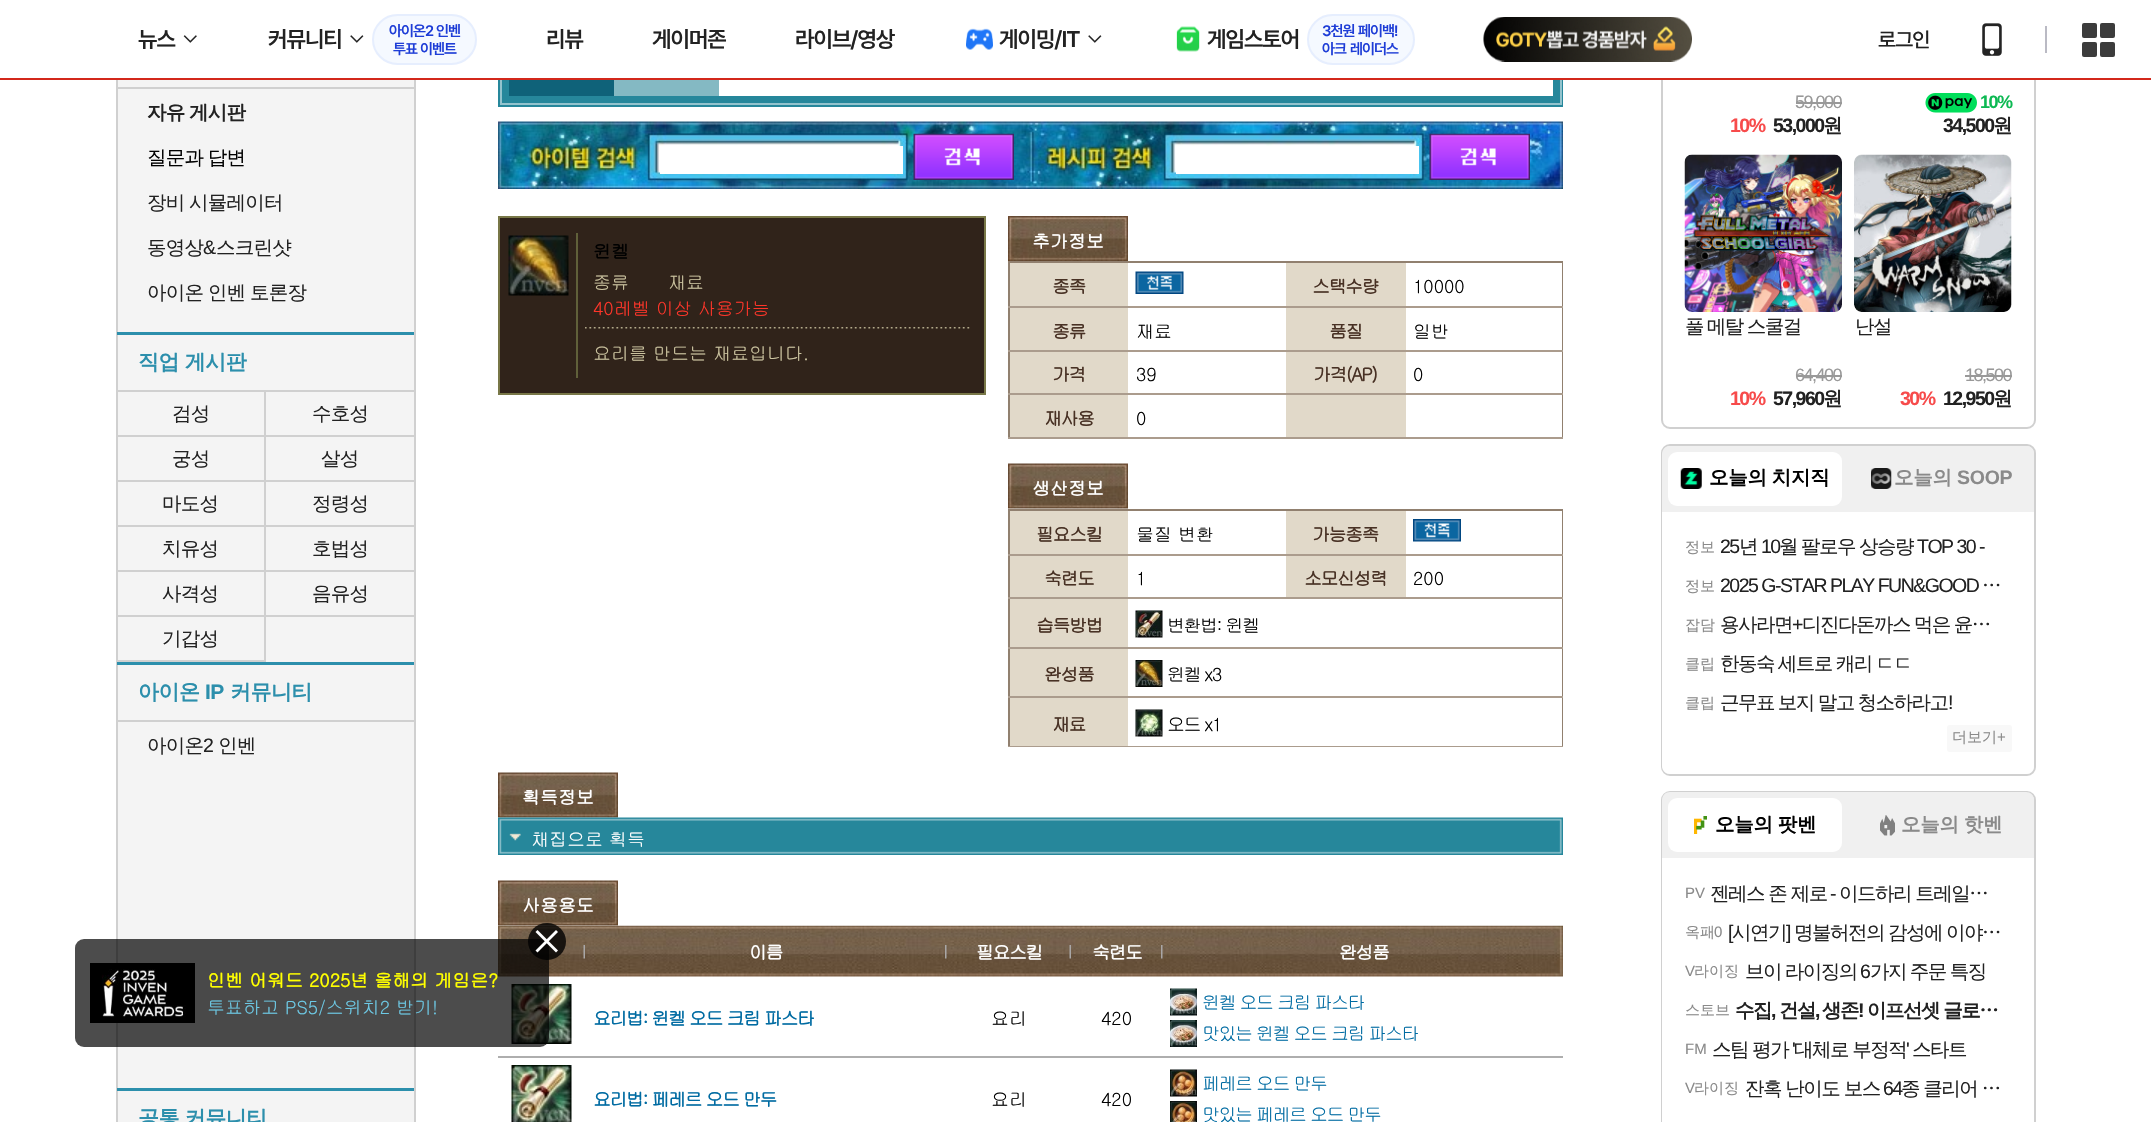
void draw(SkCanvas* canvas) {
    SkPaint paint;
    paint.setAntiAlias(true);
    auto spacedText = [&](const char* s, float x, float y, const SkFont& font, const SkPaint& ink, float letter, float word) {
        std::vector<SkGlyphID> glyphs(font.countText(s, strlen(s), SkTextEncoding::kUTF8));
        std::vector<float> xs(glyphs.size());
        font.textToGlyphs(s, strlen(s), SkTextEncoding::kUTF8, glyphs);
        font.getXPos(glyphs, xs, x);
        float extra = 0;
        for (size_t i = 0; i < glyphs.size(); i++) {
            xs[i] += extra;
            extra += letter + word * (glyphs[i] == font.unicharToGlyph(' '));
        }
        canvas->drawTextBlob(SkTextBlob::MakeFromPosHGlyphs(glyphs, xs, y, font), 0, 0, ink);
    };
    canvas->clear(0xFFFFFFFF);
    paint.setStyle(SkPaint::kStroke_Style);
    paint.setStrokeWidth(2);
    paint.setColor(0xFF26879B);
    canvas->drawRect(SkRect::MakeXYWH(499, -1, 1063, 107), paint);
    paint.setStyle(SkPaint::kFill_Style);
    canvas->drawRect(SkRect::MakeXYWH(502, 80, 1058, 23), paint);
    paint.setStyle(SkPaint::kStroke_Style);
    paint.setColor(0xFF93C3CD);
    canvas->drawRect(SkRect::MakeXYWH(501, -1, 1060, 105), paint);
    paint.setColor(0xFFD0D0D0);
    canvas->drawRoundRect(SkRect::MakeXYWH(1662, -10, 373, 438), 8, 8, paint);
    paint.setStyle(SkPaint::kFill_Style);
    paint.setColor(0xFFFFFFFF);
    canvas->drawRect(SkRect::MakeXYWH(498, 0, 1538, 78), paint);
    paint.setColor(0xFFD3281B);
    canvas->drawRect(SkRect::MakeXYWH(0, 78, 2151, 2), paint);
    SkFont font1(fontMgr->matchFamilyStyle("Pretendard", SkFontStyle(600, SkFontStyle::kNormal_Width, SkFontStyle::kUpright_Slant)), 22.5f);
    font1.setSubpixel(true);
    paint.setColor(0xFF222222);
    spacedText("뉴스", 138, 47, font1, paint, -1, 0);
    canvas->drawImageRect(SkImages::DeferredFromEncodedData(SkData::MakeFromFileName("img1.png")), SkRect::MakeXYWH(183, 35, 14, 8), SkSamplingOptions());
    spacedText("커뮤니티", 268, 47, font1, paint, -1, 0);
    canvas->drawImageRect(SkImages::DeferredFromEncodedData(SkData::MakeFromFileName("img2.png")), SkRect::MakeXYWH(350, 35, 14, 8), SkSamplingOptions());
    paint.setColor(0xFFF5F9FF);
    canvas->drawRoundRect(SkRect::MakeXYWH(373, 15, 103, 49), 24.5f, 24.5f, paint);
    paint.setStyle(SkPaint::kStroke_Style);
    paint.setColor(0xFFE6EEFE);
    canvas->drawRoundRect(SkRect::MakeXYWH(373, 15, 103, 49), 24.5f, 24.5f, paint);
    SkFont font2(fontMgr->matchFamilyStyle("Pretendard", SkFontStyle(600, SkFontStyle::kNormal_Width, SkFontStyle::kUpright_Slant)), 15);
    font2.setSubpixel(true);
    paint.setStyle(SkPaint::kFill_Style);
    paint.setColor(0xFF1E3DD7);
    spacedText("아이온2", 389, 36, font2, paint, -1, 0);
    spacedText("인벤", 436, 36, font2, paint, -1, 0);
    spacedText("투표", 393, 54, font2, paint, -1, 0);
    spacedText("이벤트", 420, 54, font2, paint, -1, 0);
    paint.setColor(0xFF222222);
    spacedText("리뷰", 546, 47, font1, paint, -1, 0);
    spacedText("게이머존", 652, 47, font1, paint, -1, 0);
    spacedText("라이브/영상", 795, 47, font1, paint, -1, 0);
    canvas->drawImageRect(SkImages::DeferredFromEncodedData(SkData::MakeFromFileName("img3.png")), SkRect::MakeXYWH(966, 28, 27, 22), SkSamplingOptions());
    spacedText("게이밍/IT", 999, 47, font1, paint, -1, 0);
    canvas->drawImageRect(SkImages::DeferredFromEncodedData(SkData::MakeFromFileName("img2.png")), SkRect::MakeXYWH(1088, 35, 14, 8), SkSamplingOptions());
    canvas->drawImageRect(SkImages::DeferredFromEncodedData(SkData::MakeFromFileName("img4.png")), SkRect::MakeXYWH(1176, 26, 24, 26), SkSamplingOptions());
    spacedText("게임스토어", 1207, 47, font1, paint, -1, 0);
    paint.setColor(0xFFF5F9FF);
    canvas->drawRoundRect(SkRect::MakeXYWH(1308, 15, 106, 49), 24.5f, 24.5f, paint);
    paint.setStyle(SkPaint::kStroke_Style);
    paint.setColor(0xFFE6EEFE);
    canvas->drawRoundRect(SkRect::MakeXYWH(1308, 15, 106, 49), 24.5f, 24.5f, paint);
    paint.setStyle(SkPaint::kFill_Style);
    paint.setColor(0xFF1E3DD7);
    spacedText("3천원", 1322, 36, font2, paint, -1, 0);
    spacedText("페이백!", 1358, 36, font2, paint, -1, 0);
    spacedText("아크", 1322, 54, font2, paint, -1, 0);
    spacedText("레이더스", 1350, 54, font2, paint, -1, 0);
    canvas->drawImageRect(SkImages::DeferredFromEncodedData(SkData::MakeFromFileName("img5.png")), SkRect::MakeXYWH(1483, 17, 209, 45), SkSamplingOptions());
    SkFont font3(fontMgr->matchFamilyStyle("Pretendard", SkFontStyle(500, SkFontStyle::kNormal_Width, SkFontStyle::kUpright_Slant)), 21);
    font3.setSubpixel(true);
    paint.setColor(0xFF222222);
    spacedText("로그인", 1878, 47, font3, paint, -1, 0);
    canvas->drawImageRect(SkImages::DeferredFromEncodedData(SkData::MakeFromFileName("img6.png")), SkRect::MakeXYWH(1982, 23, 20, 33), SkSamplingOptions());
    paint.setColor(0xFF3C3C3C);
    canvas->drawRoundRect(SkRect::MakeXYWH(2082, 23, 15, 15), 2, 2, paint);
    canvas->drawRoundRect(SkRect::MakeXYWH(2082, 42, 15, 15), 2, 2, paint);
    canvas->drawRoundRect(SkRect::MakeXYWH(2100, 23, 15, 15), 2, 2, paint);
    canvas->drawRoundRect(SkRect::MakeXYWH(2100, 42, 15, 15), 2, 2, paint);
    paint.setColor(0xFFBABAC4);
    canvas->drawRect(SkRect::MakeXYWH(2045, 26, 2, 27), paint);
    paint.setColor(0xFFF4F4F4);
    canvas->drawRect(SkRect::MakeXYWH(118, 80, 296, 1042), paint);
    paint.setColor(0xFFD0D0D0);
    canvas->drawRect(SkRect::MakeXYWH(414, 80, 2, 1042), paint);
    canvas->drawRect(SkRect::MakeXYWH(116, 80, 2, 1042), paint);
    canvas->drawRect(SkRect::MakeXYWH(117, 87, 297, 2), paint);
    SkFont font4(fontMgr->matchFamilyStyle("WenQuanYi Zen Hei", SkFontStyle::Bold()), 19.5f);
    font4.setSubpixel(true);
    paint.setColor(0xFF222222);
    spacedText("자유 게시판", 147, 119, font4, paint, -0.75f, -0.5f);
    SkFont font5(fontMgr->matchFamilyStyle("WenQuanYi Zen Hei", SkFontStyle(500, SkFontStyle::kNormal_Width, SkFontStyle::kUpright_Slant)), 19.5f);
    font5.setSubpixel(true);
    paint.setColor(0xFF000000);
    spacedText("질문과 답변", 147, 164, font5, paint, -0.75f, -0.5f);
    paint.setColor(0xFF222222);
    spacedText("장비 시뮬레이터", 147, 209, font5, paint, -0.75f, -0.5f);
    spacedText("동영상", 147, 254, font5, paint, -0.75f, 0);
    SkFont font6(fontMgr->matchFamilyStyle("Liberation Sans", SkFontStyle::Normal()), 19.5f);
    font6.setSubpixel(true);
    spacedText("&", 203, 254, font6, paint, -0.75f, 0);
    spacedText("스크린샷", 216, 254, font5, paint, -0.75f, 0);
    spacedText("아이온 인벤 토론장", 147, 299, font5, paint, -0.75f, -0.5f);
    paint.setColor(0xFF2C8FAC);
    canvas->drawRect(SkRect::MakeXYWH(117, 332, 297, 3), paint);
    paint.setColor(0xFFD0D0D0);
    canvas->drawRect(SkRect::MakeXYWH(117, 390, 297, 2), paint);
    SkFont font7(fontMgr->matchFamilyStyle("WenQuanYi Zen Hei", SkFontStyle::Bold()), 21);
    font7.setSubpixel(true);
    paint.setColor(0xFF2C8FAC);
    spacedText("직업 게시판", 138, 369, font7, paint, -0.5f, 0);
    paint.setColor(0xFFD0D0D0);
    canvas->drawRect(SkRect::MakeXYWH(264, 392, 2, 270), paint);
    canvas->drawRect(SkRect::MakeXYWH(117, 435, 297, 2), paint);
    paint.setColor(0xFF222222);
    spacedText("검성", 172, 420, font5, paint, -0.75f, 0);
    spacedText("수호성", 312, 420, font5, paint, -0.75f, 0);
    paint.setColor(0xFFD0D0D0);
    canvas->drawRect(SkRect::MakeXYWH(117, 480, 297, 2), paint);
    paint.setColor(0xFF222222);
    spacedText("궁성", 172, 465, font5, paint, -0.75f, 0);
    spacedText("살성", 321, 465, font5, paint, -0.75f, 0);
    paint.setColor(0xFFD0D0D0);
    canvas->drawRect(SkRect::MakeXYWH(117, 525, 297, 2), paint);
    paint.setColor(0xFF222222);
    spacedText("마도성", 162, 510, font5, paint, -0.75f, 0);
    spacedText("정령성", 312, 510, font5, paint, -0.75f, 0);
    paint.setColor(0xFFD0D0D0);
    canvas->drawRect(SkRect::MakeXYWH(117, 570, 297, 2), paint);
    paint.setColor(0xFF222222);
    spacedText("치유성", 162, 555, font5, paint, -0.75f, 0);
    spacedText("호법성", 312, 555, font5, paint, -0.75f, 0);
    paint.setColor(0xFFD0D0D0);
    canvas->drawRect(SkRect::MakeXYWH(117, 615, 297, 2), paint);
    paint.setColor(0xFF222222);
    spacedText("사격성", 162, 600, font5, paint, -0.75f, 0);
    spacedText("음유성", 312, 600, font5, paint, -0.75f, 0);
    paint.setColor(0xFFD0D0D0);
    canvas->drawRect(SkRect::MakeXYWH(117, 660, 149, 2), paint);
    paint.setColor(0xFF222222);
    spacedText("기갑성", 162, 645, font5, paint, -0.75f, 0);
    paint.setColor(0xFF2C8FAC);
    canvas->drawRect(SkRect::MakeXYWH(117, 662, 297, 3), paint);
    paint.setColor(0xFFD0D0D0);
    canvas->drawRect(SkRect::MakeXYWH(117, 720, 297, 2), paint);
    paint.setColor(0xFF2C8FAC);
    spacedText("아이온", 138, 699, font7, paint, -0.5f, 0);
    SkFont font8(fontMgr->matchFamilyStyle("Liberation Sans", SkFontStyle::Bold()), 21);
    font8.setSubpixel(true);
    spacedText("IP", 205, 699, font8, paint, -0.5f, 0);
    spacedText("커뮤니티", 230, 699, font7, paint, -0.5f, 0);
    paint.setColor(0xFF222222);
    spacedText("아이온", 147, 752, font5, paint, -0.75f, 0);
    spacedText("2", 203, 752, font6, paint, -0.75f, 0);
    spacedText("인벤", 218, 752, font5, paint, -0.75f, 0);
    paint.setColor(0xFF2C8FAC);
    canvas->drawRect(SkRect::MakeXYWH(117, 1088, 297, 3), paint);
    spacedText("공통 커뮤니티", 138, 1125, font7, paint, -0.5f, 0);
    paint.setColor(0xFF0F6279);
    canvas->drawRect(SkRect::MakeXYWH(509, 80, 105, 16), paint);
    paint.setColor(0xFF84B9C3);
    canvas->drawRect(SkRect::MakeXYWH(614, 80, 105, 16), paint);
    paint.setColor(0xFFFFFFFF);
    canvas->drawRect(SkRect::MakeXYWH(719, 80, 834, 16), paint);
    canvas->drawImageRect(SkImages::DeferredFromEncodedData(SkData::MakeFromFileName("img7.png")), SkRect::MakeXYWH(498, 121, 1065, 68), SkSamplingOptions());
    canvas->drawRect(SkRect::MakeXYWH(660, 146, 243, 28), paint);
    canvas->drawImageRect(SkImages::DeferredFromEncodedData(SkData::MakeFromFileName("img8.png")), SkRect::MakeXYWH(913, 133, 101, 47), SkSamplingOptions());
    canvas->drawRect(SkRect::MakeXYWH(1176, 146, 243, 28), paint);
    canvas->drawImageRect(SkImages::DeferredFromEncodedData(SkData::MakeFromFileName("img9.png")), SkRect::MakeXYWH(1429, 133, 101, 47), SkSamplingOptions());
    paint.setColor(0xFF30231A);
    canvas->drawRect(SkRect::MakeXYWH(499, 217, 486, 177), paint);
    paint.setStyle(SkPaint::kStroke_Style);
    paint.setColor(0xFF787747);
    canvas->drawRect(SkRect::MakeXYWH(499, 217, 486, 177), paint);
    paint.setStyle(SkPaint::kFill_Style);
    paint.setColor(0xFF60603A);
    canvas->drawRect(SkRect::MakeXYWH(576, 233, 2, 145), paint);
    canvas->drawImageRect(SkImages::DeferredFromEncodedData(SkData::MakeFromFileName("img10.png")), SkRect::MakeXYWH(508, 235, 61, 61), SkSamplingOptions());
    SkFont font9(fontMgr->matchFamilyStyle("Gulim", SkFontStyle::Bold()), 18);
    font9.setSubpixel(true);
    paint.setColor(0xFF000000);
    canvas->drawString("윈켈", 593, 258, font9, paint);
    SkFont font10(fontMgr->matchFamilyStyle("Gulim", SkFontStyle::Normal()), 18);
    font10.setSubpixel(true);
    paint.setColor(0xFFCCC4A0);
    canvas->drawString("종류", 593, 289, font10, paint);
    canvas->drawString("재료", 668, 289, font10, paint);
    paint.setColor(0xFFFF3529);
    canvas->drawString("40레벨 이상 사용가능", 593, 315, font10, paint);
    canvas->drawImageRect(SkImages::DeferredFromEncodedData(SkData::MakeFromFileName("img11.png")), SkRect::MakeXYWH(585, 327, 385, 2), SkSamplingOptions());
    paint.setColor(0xFFCCC4A0);
    canvas->drawString("요리를 만드는 재료입니다.", 593, 360, font10, paint);
    canvas->drawImageRect(SkImages::DeferredFromEncodedData(SkData::MakeFromFileName("img12.png")), SkRect::MakeXYWH(1008, 216, 120, 45), SkSamplingOptions());
    paint.setColor(0xFFFFFFFF);
    canvas->drawString("추가정보", 1032, 248, font9, paint);
    paint.setColor(0xFF91806F);
    canvas->drawRect(SkRect::MakeXYWH(1008, 261, 555, 2), paint);
    canvas->drawRect(SkRect::MakeXYWH(1562, 261, 1, 177), paint);
    canvas->drawRect(SkRect::MakeXYWH(1008, 261, 2, 177), paint);
    paint.setColor(0xFFE1D9C9);
    canvas->drawRect(SkRect::MakeXYWH(1010, 263, 118, 43), paint);
    paint.setColor(0xFF483124);
    spacedText("종족", 1052, 293, font9, paint, -1.5f, 0);
    canvas->drawImageRect(SkImages::DeferredFromEncodedData(SkData::MakeFromFileName("img13.png")), SkRect::MakeXYWH(1135, 271, 49, 23), SkSamplingOptions());
    paint.setColor(0xFFE1D9C9);
    canvas->drawRect(SkRect::MakeXYWH(1286, 263, 120, 43), paint);
    paint.setColor(0xFF483124);
    spacedText("스택수량", 1312, 293, font9, paint, -1.5f, 0);
    paint.setColor(0xFFAB9C8D);
    canvas->drawRect(SkRect::MakeXYWH(1008, 306, 555, 2), paint);
    paint.setColor(0xFF000000);
    canvas->drawString("10000", 1413, 293, font10, paint);
    paint.setColor(0xFFE1D9C9);
    canvas->drawRect(SkRect::MakeXYWH(1010, 308, 118, 42), paint);
    paint.setColor(0xFF483124);
    spacedText("종류", 1052, 338, font9, paint, -1.5f, 0);
    paint.setColor(0xFF000000);
    canvas->drawString("재료", 1136, 338, font10, paint);
    paint.setColor(0xFFE1D9C9);
    canvas->drawRect(SkRect::MakeXYWH(1286, 308, 120, 42), paint);
    paint.setColor(0xFF483124);
    spacedText("품질", 1329, 338, font9, paint, -1.5f, 0);
    paint.setColor(0xFFAB9C8D);
    canvas->drawRect(SkRect::MakeXYWH(1008, 350, 555, 2), paint);
    paint.setColor(0xFF000000);
    canvas->drawString("일반", 1413, 338, font10, paint);
    paint.setColor(0xFFE1D9C9);
    canvas->drawRect(SkRect::MakeXYWH(1010, 352, 118, 41), paint);
    paint.setColor(0xFF483124);
    spacedText("가격", 1052, 381, font9, paint, -1.5f, 0);
    paint.setColor(0xFF000000);
    canvas->drawString("39", 1136, 381, font10, paint);
    paint.setColor(0xFFE1D9C9);
    canvas->drawRect(SkRect::MakeXYWH(1286, 352, 120, 41), paint);
    paint.setColor(0xFF483124);
    spacedText("가격(AP)", 1313, 381, font9, paint, -1.5f, 0);
    paint.setColor(0xFFAB9C8D);
    canvas->drawRect(SkRect::MakeXYWH(1008, 393, 555, 2), paint);
    paint.setColor(0xFF000000);
    canvas->drawString("0", 1413, 381, font10, paint);
    paint.setColor(0xFFE1D9C9);
    canvas->drawRect(SkRect::MakeXYWH(1010, 395, 118, 42), paint);
    paint.setColor(0xFF483124);
    spacedText("재사용", 1044, 425, font9, paint, -1.5f, 0);
    paint.setColor(0xFF000000);
    canvas->drawString("0", 1136, 425, font10, paint);
    paint.setColor(0xFFE1D9C9);
    canvas->drawRect(SkRect::MakeXYWH(1286, 395, 120, 42), paint);
    paint.setColor(0xFFAB9C8D);
    canvas->drawRect(SkRect::MakeXYWH(1008, 437, 555, 2), paint);
    canvas->drawImageRect(SkImages::DeferredFromEncodedData(SkData::MakeFromFileName("img14.png")), SkRect::MakeXYWH(1008, 463, 120, 46), SkSamplingOptions());
    paint.setColor(0xFFFFFFFF);
    canvas->drawString("생산정보", 1032, 495, font9, paint);
    paint.setColor(0xFF91806F);
    canvas->drawRect(SkRect::MakeXYWH(1008, 509, 555, 2), paint);
    canvas->drawRect(SkRect::MakeXYWH(1562, 509, 1, 238), paint);
    canvas->drawRect(SkRect::MakeXYWH(1008, 509, 2, 238), paint);
    paint.setColor(0xFFAB9C8D);
    canvas->drawRect(SkRect::MakeXYWH(1008, 554, 555, 2), paint);
    canvas->drawImageRect(SkImages::DeferredFromEncodedData(SkData::MakeFromFileName("img15.png")), SkRect::MakeXYWH(1413, 519, 48, 23), SkSamplingOptions());
    paint.setColor(0xFFE1D9C9);
    canvas->drawRect(SkRect::MakeXYWH(1010, 511, 118, 43), paint);
    paint.setColor(0xFF483124);
    spacedText("필요스킬", 1036, 541, font9, paint, -1.5f, 0);
    paint.setColor(0xFF000000);
    canvas->drawString("물질 변환", 1136, 541, font10, paint);
    paint.setColor(0xFFE1D9C9);
    canvas->drawRect(SkRect::MakeXYWH(1286, 511, 120, 43), paint);
    paint.setColor(0xFF483124);
    spacedText("가능종족", 1312, 541, font9, paint, -1.5f, 0);
    paint.setColor(0xFFE1D9C9);
    canvas->drawRect(SkRect::MakeXYWH(1010, 556, 118, 41), paint);
    paint.setColor(0xFF483124);
    spacedText("숙련도", 1044, 585, font9, paint, -1.5f, 0);
    paint.setColor(0xFF000000);
    canvas->drawString("1", 1136, 585, font10, paint);
    paint.setColor(0xFFE1D9C9);
    canvas->drawRect(SkRect::MakeXYWH(1286, 556, 120, 41), paint);
    paint.setColor(0xFF483124);
    spacedText("소모신성력", 1304, 585, font9, paint, -1.5f, 0);
    paint.setColor(0xFFAB9C8D);
    canvas->drawRect(SkRect::MakeXYWH(1008, 597, 555, 2), paint);
    paint.setColor(0xFF000000);
    canvas->drawString("200", 1413, 585, font10, paint);
    paint.setColor(0xFFE1D9C9);
    canvas->drawRect(SkRect::MakeXYWH(1010, 599, 118, 48), paint);
    paint.setColor(0xFF483124);
    spacedText("습득방법", 1036, 632, font9, paint, -1.5f, 0);
    paint.setColor(0xFFAB9C8D);
    canvas->drawRect(SkRect::MakeXYWH(1008, 647, 555, 2), paint);
    canvas->drawImageRect(SkImages::DeferredFromEncodedData(SkData::MakeFromFileName("img16.png")), SkRect::MakeXYWH(1135, 610, 28, 28), SkSamplingOptions());
    paint.setColor(0xFF000000);
    spacedText("변환법: 윈켈", 1167, 632, font10, paint, -1.5f, 0);
    paint.setColor(0xFFE1D9C9);
    canvas->drawRect(SkRect::MakeXYWH(1010, 649, 118, 47), paint);
    paint.setColor(0xFF483124);
    spacedText("완성품", 1044, 681, font9, paint, -1.5f, 0);
    paint.setColor(0xFFAB9C8D);
    canvas->drawRect(SkRect::MakeXYWH(1008, 696, 555, 2), paint);
    canvas->drawImageRect(SkImages::DeferredFromEncodedData(SkData::MakeFromFileName("img17.png")), SkRect::MakeXYWH(1135, 660, 28, 27), SkSamplingOptions());
    paint.setColor(0xFF000000);
    spacedText("윈켈 x3", 1167, 681, font10, paint, -1.5f, 0);
    paint.setColor(0xFFE1D9C9);
    canvas->drawRect(SkRect::MakeXYWH(1010, 698, 118, 48), paint);
    paint.setColor(0xFF483124);
    spacedText("재료", 1052, 731, font9, paint, -1.5f, 0);
    paint.setColor(0xFFAB9C8D);
    canvas->drawRect(SkRect::MakeXYWH(1008, 746, 555, 1), paint);
    canvas->drawImageRect(SkImages::DeferredFromEncodedData(SkData::MakeFromFileName("img18.png")), SkRect::MakeXYWH(1135, 709, 28, 28), SkSamplingOptions());
    paint.setColor(0xFF000000);
    spacedText("오드 x1", 1167, 731, font10, paint, -1.5f, 0);
    canvas->drawImageRect(SkImages::DeferredFromEncodedData(SkData::MakeFromFileName("img19.png")), SkRect::MakeXYWH(498, 772, 120, 46), SkSamplingOptions());
    paint.setColor(0xFFFFFFFF);
    canvas->drawString("획득정보", 522, 804, font9, paint);
    canvas->drawImageRect(SkImages::DeferredFromEncodedData(SkData::MakeFromFileName("img20.png")), SkRect::MakeXYWH(498, 817, 1065, 38), SkSamplingOptions());
    canvas->drawString("채집으로 획득", 531, 846, font10, paint);
    canvas->drawImageRect(SkImages::DeferredFromEncodedData(SkData::MakeFromFileName("img19.png")), SkRect::MakeXYWH(498, 880, 120, 46), SkSamplingOptions());
    canvas->drawString("사용용도", 522, 912, font9, paint);
    canvas->drawImageRect(SkImages::DeferredFromEncodedData(SkData::MakeFromFileName("img21.png")), SkRect::MakeXYWH(498, 925, 1065, 52), SkSamplingOptions());
    canvas->drawImageRect(SkImages::DeferredFromEncodedData(SkData::MakeFromFileName("img22.png")), SkRect::MakeXYWH(583, 945, 2, 14), SkSamplingOptions());
    canvas->drawImageRect(SkImages::DeferredFromEncodedData(SkData::MakeFromFileName("img23.png")), SkRect::MakeXYWH(945, 945, 2, 14), SkSamplingOptions());
    spacedText("이름", 749, 959, font9, paint, -1.5f, 0);
    canvas->drawImageRect(SkImages::DeferredFromEncodedData(SkData::MakeFromFileName("img24.png")), SkRect::MakeXYWH(1069, 945, 2, 14), SkSamplingOptions());
    spacedText("필요스킬", 976, 959, font9, paint, -1.5f, 0);
    canvas->drawImageRect(SkImages::DeferredFromEncodedData(SkData::MakeFromFileName("img25.png")), SkRect::MakeXYWH(1161, 945, 2, 14), SkSamplingOptions());
    spacedText("숙련도", 1092, 959, font9, paint, -1.5f, 0);
    spacedText("완성품", 1339, 959, font9, paint, -1.5f, 0);
    canvas->drawImageRect(SkImages::DeferredFromEncodedData(SkData::MakeFromFileName("img26.png")), SkRect::MakeXYWH(511, 984, 61, 60), SkSamplingOptions());
    paint.setColor(0xFF006BA2);
    spacedText("요리법: 윈켈 오드 크림 파스타", 593, 1025, font9, paint, -1.5f, 0);
    paint.setColor(0xFF000000);
    canvas->drawString("요리", 991, 1025, font10, paint);
    canvas->drawString("420", 1101, 1025, font10, paint);
    paint.setColor(0xFFAEAEAE);
    canvas->drawRect(SkRect::MakeXYWH(498, 1056, 1065, 2), paint);
    canvas->drawImageRect(SkImages::DeferredFromEncodedData(SkData::MakeFromFileName("img27.png")), SkRect::MakeXYWH(1170, 988, 27, 28), SkSamplingOptions());
    paint.setColor(0xFF006BA2);
    spacedText("윈켈 오드 크림 파스타", 1202, 1009, font10, paint, -1.5f, 0);
    canvas->drawImageRect(SkImages::DeferredFromEncodedData(SkData::MakeFromFileName("img28.png")), SkRect::MakeXYWH(1170, 1020, 27, 27), SkSamplingOptions());
    spacedText("맛있는 윈켈 오드 크림 파스타", 1202, 1040, font10, paint, -1.5f, 0);
    canvas->drawImageRect(SkImages::DeferredFromEncodedData(SkData::MakeFromFileName("img29.png")), SkRect::MakeXYWH(511, 1065, 61, 57), SkSamplingOptions());
    spacedText("요리법: 페레르 오드 만두", 593, 1106, font9, paint, -1.5f, 0);
    paint.setColor(0xFF000000);
    canvas->drawString("요리", 991, 1106, font10, paint);
    canvas->drawString("420", 1101, 1106, font10, paint);
    canvas->drawImageRect(SkImages::DeferredFromEncodedData(SkData::MakeFromFileName("img30.png")), SkRect::MakeXYWH(1170, 1069, 27, 28), SkSamplingOptions());
    paint.setColor(0xFF006BA2);
    spacedText("페레르 오드 만두", 1202, 1090, font10, paint, -1.5f, 0);
    canvas->drawImageRect(SkImages::DeferredFromEncodedData(SkData::MakeFromFileName("img31.png")), SkRect::MakeXYWH(1170, 1101, 27, 21), SkSamplingOptions());
    spacedText("맛있는 페레르 오드 만두", 1202, 1121, font10, paint, -1.5f, 0);
    SkFont font11(fontMgr->matchFamilyStyle("Liberation Sans", SkFontStyle::Normal()), 18);
    font11.setSubpixel(true);
    paint.setColor(0xFF999999);
    spacedText("59,000", 1795, 108, font11, paint, -1.5f, 0);
    canvas->drawRect(SkRect::MakeXYWH(1796, 102, 46, 2), paint);
    SkFont font12(fontMgr->matchFamilyStyle("Liberation Sans", SkFontStyle::Bold()), 19.5f);
    font12.setSubpixel(true);
    paint.setColor(0xFFF74B4B);
    spacedText("10%", 1730, 132, font12, paint, -1.5f, 0);
    paint.setColor(0xFF222222);
    spacedText("53,000", 1773, 132, font12, paint, -1.5f, 0);
    spacedText("원", 1823, 132, font4, paint, -1.5f, 0);
    canvas->drawImageRect(SkImages::DeferredFromEncodedData(SkData::MakeFromFileName("img32.png")), SkRect::MakeXYWH(1925, 93, 52, 20), SkSamplingOptions());
    SkFont font13(fontMgr->matchFamilyStyle("Liberation Sans", SkFontStyle::Bold()), 18);
    font13.setSubpixel(true);
    paint.setColor(0xFF0DB953);
    spacedText("10%", 1980, 108, font13, paint, -1.5f, 0);
    paint.setColor(0xFF222222);
    spacedText("34,500", 1943, 132, font12, paint, -1.5f, 0);
    spacedText("원", 1993, 132, font4, paint, -1.5f, 0);
    canvas->drawImageRect(SkImages::DeferredFromEncodedData(SkData::MakeFromFileName("img33.png")), SkRect::MakeXYWH(1684, 154, 158, 158), SkSamplingOptions());
    spacedText("풀 메탈 스쿨걸", 1685, 333, font5, paint, -1.5f, -0.5f);
    paint.setColor(0xFF999999);
    spacedText("64,400", 1795, 381, font11, paint, -1.5f, 0);
    canvas->drawRect(SkRect::MakeXYWH(1796, 375, 46, 2), paint);
    paint.setColor(0xFFF74B4B);
    spacedText("10%", 1730, 405, font12, paint, -1.5f, 0);
    paint.setColor(0xFF222222);
    spacedText("57,960", 1773, 405, font12, paint, -1.5f, 0);
    spacedText("원", 1823, 405, font4, paint, -1.5f, 0);
    canvas->drawImageRect(SkImages::DeferredFromEncodedData(SkData::MakeFromFileName("img34.png")), SkRect::MakeXYWH(1854, 154, 158, 158), SkSamplingOptions());
    spacedText("난설", 1855, 333, font5, paint, -1.5f, 0);
    paint.setColor(0xFF999999);
    spacedText("18,500", 1965, 381, font11, paint, -1.5f, 0);
    canvas->drawRect(SkRect::MakeXYWH(1965, 375, 47, 2), paint);
    paint.setColor(0xFFF74B4B);
    spacedText("30%", 1900, 405, font12, paint, -1.5f, 0);
    paint.setColor(0xFF222222);
    spacedText("12,950", 1943, 405, font12, paint, -1.5f, 0);
    spacedText("원", 1993, 405, font4, paint, -1.5f, 0);
    paint.setColor(0xFFF8F8F8);
    canvas->drawRoundRect(SkRect::MakeXYWH(1662, 445, 373, 330), 8, 8, paint);
    paint.setStyle(SkPaint::kStroke_Style);
    paint.setColor(0xFFD0D0D0);
    canvas->drawRoundRect(SkRect::MakeXYWH(1662, 445, 373, 330), 8, 8, paint);
    paint.setStyle(SkPaint::kFill_Style);
    paint.setColor(0xFFF0F0F0);
    canvas->drawPath(SkPathBuilder().moveTo(1670, 446).lineTo(2026, 446).cubicTo(2030.5f, 446, 2034, 449.5f, 2034, 454).lineTo(2034, 512).lineTo(1662, 512).lineTo(1662, 454).cubicTo(1662, 449.5f, 1665.5f, 446, 1670, 446).close().detach(), paint);
    paint.setColor(0xFFFFFFFF);
    canvas->drawRoundRect(SkRect::MakeXYWH(1668, 452, 174, 54), 9, 9, paint);
    canvas->drawImageRect(SkImages::DeferredFromEncodedData(SkData::MakeFromFileName("img35.png")), SkRect::MakeXYWH(1680, 468, 22, 21), SkSamplingOptions());
    paint.setColor(0xFF000000);
    spacedText("오늘의 치지직", 1709, 484, font4, paint, -0.25f, -0.5f);
    canvas->drawImageRect(SkImages::DeferredFromEncodedData(SkData::MakeFromFileName("img36.png")), SkRect::MakeXYWH(1871, 468, 21, 21), SkSamplingOptions());
    paint.setColor(0xFF8A8A8A);
    spacedText("오늘의", 1894, 484, font4, paint, -0.25f, 0);
    spacedText("SOOP", 1957, 484, font12, paint, -0.25f, 0);
    paint.setColor(0xFFFFFFFF);
    canvas->drawPath(SkPathBuilder().moveTo(1662, 512).lineTo(2034, 512).lineTo(2034, 766).cubicTo(2034, 770.5f, 2030.5f, 774, 2026, 774).lineTo(1670, 774).cubicTo(1665.5f, 774, 1662, 770.5f, 1662, 766).close().detach(), paint);
    SkFont font14(fontMgr->matchFamilyStyle("WenQuanYi Zen Hei", SkFontStyle(500, SkFontStyle::kNormal_Width, SkFontStyle::kUpright_Slant)), 15);
    font14.setSubpixel(true);
    paint.setColor(0xFF8A8A8A);
    canvas->drawString("정보", 1685, 552, font14, paint);
    paint.setColor(0xFF222222);
    spacedText("25", 1720, 553, font6, paint, -1.5f, 0);
    spacedText("년", 1739, 553, font5, paint, -1.5f, 0);
    spacedText("10", 1761, 553, font6, paint, -1.5f, 0);
    spacedText("월", 1779, 553, font5, paint, -1.5f, 0);
    spacedText("팔로우", 1801, 553, font5, paint, -1.5f, 0);
    spacedText("상승량", 1859, 553, font5, paint, -1.5f, 0);
    spacedText("TOP 30 -", 1917, 553, font6, paint, -1.5f, 0);
    paint.setColor(0xFF8A8A8A);
    canvas->drawString("정보", 1685, 591, font14, paint);
    paint.setColor(0xFF222222);
    spacedText("2025 G-STAR PLAY FUN&GOOD", 1720, 592, font6, paint, -1.5f, 0);
    spacedText("…", 1982, 592, font5, paint, -1.5f, 0);
    paint.setColor(0xFF8A8A8A);
    canvas->drawString("잡담", 1685, 630, font14, paint);
    paint.setColor(0xFF222222);
    spacedText("용사라면", 1720, 631, font5, paint, -1.5f, 0);
    spacedText("+", 1792, 631, font6, paint, -1.5f, 0);
    spacedText("디진다돈까스 먹은 윤…", 1802, 631, font5, paint, -1.5f, -0.5f);
    paint.setColor(0xFF8A8A8A);
    canvas->drawString("클립", 1685, 669, font14, paint);
    paint.setColor(0xFF222222);
    spacedText("한동숙 세트로 캐리 ㄷㄷ", 1720, 670, font5, paint, -1.5f, -0.5f);
    paint.setColor(0xFF8A8A8A);
    canvas->drawString("클립", 1685, 708, font14, paint);
    paint.setColor(0xFF222222);
    spacedText("근무표 보지 말고 청소하라고", 1720, 709, font5, paint, -1.5f, -0.5f);
    spacedText("!", 1948, 709, font6, paint, -1.5f, 0);
    paint.setColor(0xFFF8F8F8);
    canvas->drawRoundRect(SkRect::MakeXYWH(1947, 725, 65, 27), 3, 3, paint);
    paint.setColor(0xFF8A8A8A);
    canvas->drawString("더보기", 1952, 742, font14, paint);
    SkFont font15(fontMgr->matchFamilyStyle("Liberation Sans", SkFontStyle::Normal()), 15);
    font15.setSubpixel(true);
    canvas->drawString("+", 1997, 742, font15, paint);
    paint.setStyle(SkPaint::kStroke_Style);
    paint.setColor(0xFFD0D0D0);
    canvas->drawRoundRect(SkRect::MakeXYWH(1662, 792, 373, 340), 8, 8, paint);
    paint.setStyle(SkPaint::kFill_Style);
    paint.setColor(0xFFF0F0F0);
    canvas->drawPath(SkPathBuilder().moveTo(1670, 792).lineTo(2026, 792).cubicTo(2030.5f, 792, 2034, 795.5f, 2034, 800).lineTo(2034, 858).lineTo(1662, 858).lineTo(1662, 800).cubicTo(1662, 795.5f, 1665.5f, 792, 1670, 792).close().detach(), paint);
    paint.setColor(0xFFFFFFFF);
    canvas->drawRoundRect(SkRect::MakeXYWH(1668, 798, 174, 54), 9, 9, paint);
    canvas->drawImageRect(SkImages::DeferredFromEncodedData(SkData::MakeFromFileName("img37.png")), SkRect::MakeXYWH(1694, 816, 13, 18), SkSamplingOptions());
    paint.setColor(0xFF000000);
    spacedText("오늘의 팟벤", 1715, 831, font4, paint, -0.25f, -0.5f);
    canvas->drawImageRect(SkImages::DeferredFromEncodedData(SkData::MakeFromFileName("img38.png")), SkRect::MakeXYWH(1880, 815, 15, 21), SkSamplingOptions());
    paint.setColor(0xFF8A8A8A);
    spacedText("오늘의 핫벤", 1901, 831, font4, paint, -0.25f, -0.5f);
    paint.setColor(0xFFFFFFFF);
    canvas->drawRect(SkRect::MakeXYWH(1662, 858, 1, 264), paint);
    paint.setColor(0xFF8A8A8A);
    canvas->drawString("PV", 1685, 898, font15, paint);
    paint.setColor(0xFF222222);
    spacedText("젠레스 존 제로", 1710, 900, font5, paint, -1.5f, 0);
    spacedText("-", 1830, 900, font6, paint, -1.5f, 0);
    spacedText("이드하리 트레일…", 1839, 900, font5, paint, -1.5f, 0);
    paint.setColor(0xFF8A8A8A);
    canvas->drawString("옥패", 1685, 937, font14, paint);
    canvas->drawString("0", 1714, 937, font15, paint);
    paint.setColor(0xFF222222);
    spacedText("[", 1728, 939, font6, paint, -1.5f, 0);
    spacedText("시연기", 1732, 939, font5, paint, -1.5f, 0);
    spacedText("]", 1786, 939, font6, paint, -1.5f, 0);
    spacedText("명불허전의", 1794, 939, font5, paint, -1.5f, 0);
    spacedText("감성에", 1888, 939, font5, paint, -1.5f, 0);
    spacedText("이야…", 1946, 939, font5, paint, -1.5f, 0);
    paint.setColor(0xFF8A8A8A);
    canvas->drawString("V", 1685, 976, font15, paint);
    canvas->drawString("라이징", 1694, 976, font14, paint);
    paint.setColor(0xFF222222);
    spacedText("브이 라이징의", 1745, 978, font5, paint, -1.5f, -0.5f);
    spacedText("6", 1860, 978, font6, paint, -1.5f, 0);
    spacedText("가지 주문 특징", 1870, 978, font5, paint, -1.5f, -0.5f);
    paint.setColor(0xFF8A8A8A);
    canvas->drawString("스토브", 1685, 1015, font14, paint);
    paint.setColor(0xFF222222);
    spacedText("수집", 1735, 1017, font4, paint, -1.5f, 0);
    spacedText("건설", 1779, 1017, font4, paint, -1.5f, 0);
    spacedText("생존", 1822, 1017, font4, paint, -1.5f, 0);
    spacedText("!", 1858, 1017, font12, paint, -1.5f, 0);
    spacedText("이프선셋 글로…", 1867, 1017, font4, paint, -1.5f, 0);
    spacedText(",", 1771, 1017, font12, paint, -1.5f, 0);
    spacedText(",", 1815, 1017, font12, paint, -1.5f, 0);
    paint.setColor(0xFF8A8A8A);
    canvas->drawString("FM", 1685, 1054, font15, paint);
    paint.setColor(0xFF222222);
    spacedText("스팀 평가", 1712, 1056, font5, paint, -1.5f, 0);
    spacedText("'", 1792, 1056, font6, paint, -1.5f, 0);
    spacedText("대체로 부정적", 1794, 1056, font5, paint, -1.5f, 0);
    spacedText("'", 1906, 1056, font6, paint, -1.5f, 0);
    spacedText("스타트", 1912, 1056, font5, paint, -1.5f, 0);
    paint.setColor(0xFF8A8A8A);
    canvas->drawString("V", 1685, 1093, font15, paint);
    canvas->drawString("라이징", 1694, 1093, font14, paint);
    paint.setColor(0xFF222222);
    spacedText("잔혹 난이도 보스", 1745, 1095, font5, paint, -1.5f, 0);
    spacedText("64", 1883, 1095, font6, paint, -1.5f, 0);
    spacedText("종 클리어 …", 1901, 1095, font5, paint, -1.5f, 0);
    paint.setColor(0xB3000000);
    canvas->drawRoundRect(SkRect::MakeXYWH(75, 939, 474, 108), 9, 9, paint);
    paint.setColor(0xCC000000);
    canvas->drawRoundRect(SkRect::MakeXYWH(528, 923, 38, 37), 18.5f, 18.5f, paint);
    paint.setColor(0xFFFFFFFF);
    canvas->drawPath(SkPathBuilder().moveTo(556, 930).lineTo(558, 932).lineTo(537.5f, 952.5f).lineTo(535.5f, 950.5f).close().detach(), paint);
    canvas->drawPath(SkPathBuilder().moveTo(537.5f, 930).lineTo(558, 950.5f).lineTo(556, 952.5f).lineTo(535.5f, 932).close().detach(), paint);
    canvas->drawImageRect(SkImages::DeferredFromEncodedData(SkData::MakeFromFileName("img39.png")), SkRect::MakeXYWH(90, 963, 105, 60), SkSamplingOptions());
    paint.setColor(0xFFFFFF00);
    canvas->drawString("인벤 어워드 2025년 올해의 게임은?", 207, 987, font9, paint);
    paint.setColor(0xFF6DCAE6);
    canvas->drawString("투표하고 PS5/스위치2 받기!", 207, 1014, font10, paint);
}
